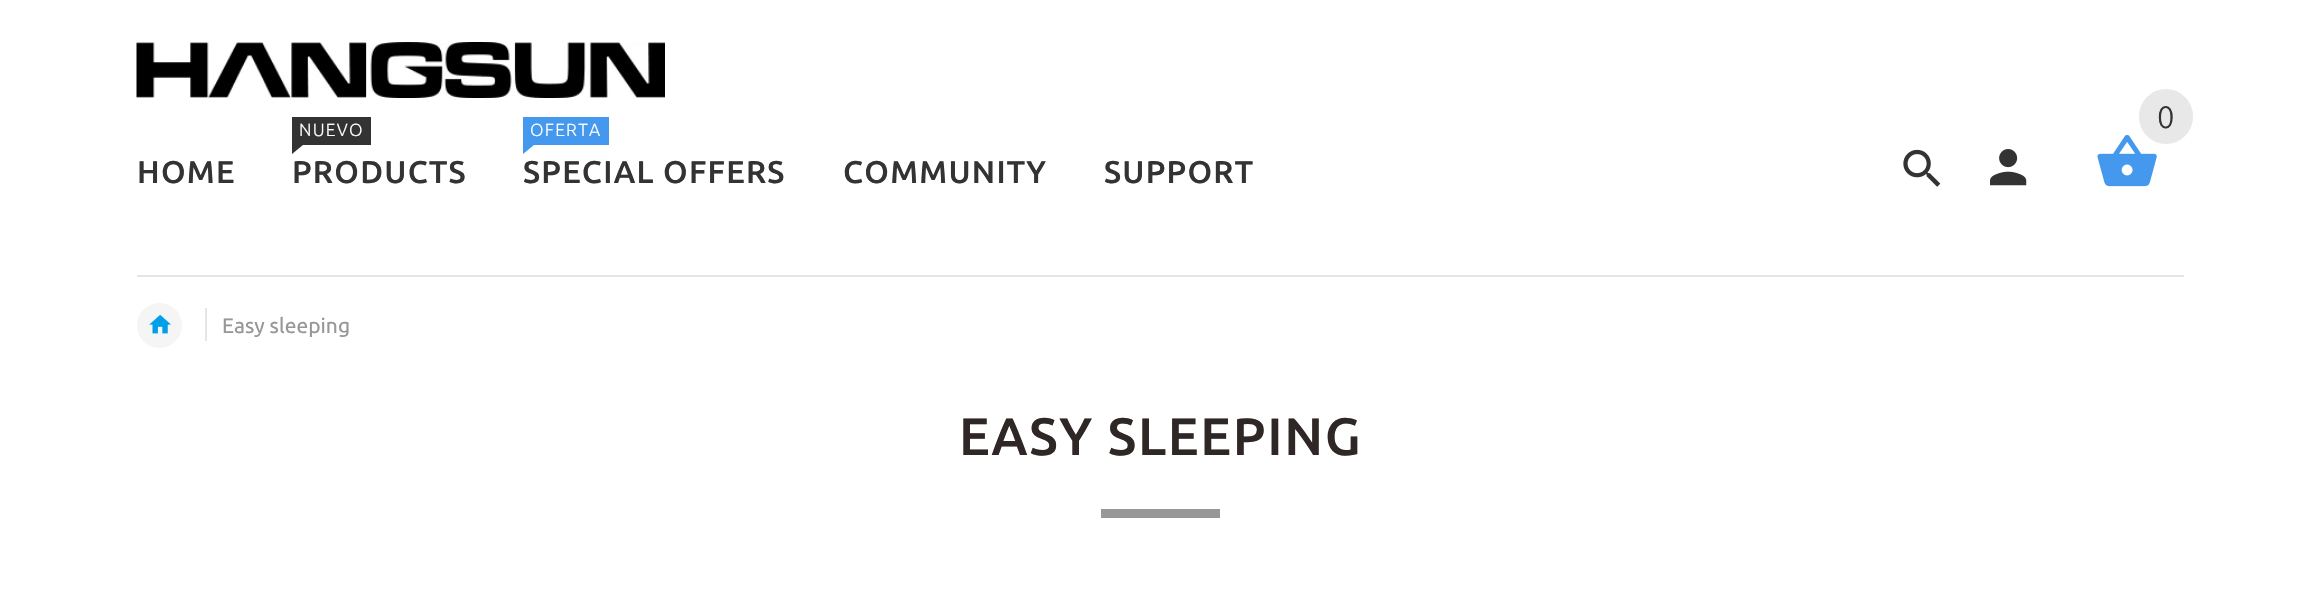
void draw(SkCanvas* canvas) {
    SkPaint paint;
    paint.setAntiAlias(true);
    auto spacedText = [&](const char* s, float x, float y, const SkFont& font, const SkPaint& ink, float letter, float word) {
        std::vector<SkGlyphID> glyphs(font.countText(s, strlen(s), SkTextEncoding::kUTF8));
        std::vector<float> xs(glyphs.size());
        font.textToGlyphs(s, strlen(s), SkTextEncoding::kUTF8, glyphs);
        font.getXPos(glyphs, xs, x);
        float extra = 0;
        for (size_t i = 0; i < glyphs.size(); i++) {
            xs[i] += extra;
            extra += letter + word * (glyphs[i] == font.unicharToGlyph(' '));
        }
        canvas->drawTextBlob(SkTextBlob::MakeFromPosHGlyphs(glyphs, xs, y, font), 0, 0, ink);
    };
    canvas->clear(0xFFFFFFFF);
    canvas->drawImageRect(SkImages::DeferredFromEncodedData(SkData::MakeFromFileName("img1.png")), SkRect::MakeXYWH(136, 42, 529, 56), SkSamplingOptions());
    canvas->drawImageRect(SkImages::DeferredFromEncodedData(SkData::MakeFromFileName("img2.png")), SkRect::MakeXYWH(2097, 134, 60, 53), SkSamplingOptions());
    paint.setColor(0xFFE8E8E8);
    canvas->drawRoundRect(SkRect::MakeXYWH(2139, 89, 54, 55), 27, 27, paint);
    SkFont font1(fontMgr->matchFamilyStyle("Ubuntu", SkFontStyle(300, SkFontStyle::kNormal_Width, SkFontStyle::kUpright_Slant)), 31);
    font1.setSubpixel(true);
    paint.setColor(0xFF333333);
    canvas->drawString("0", 2157, 128, font1, paint);
    canvas->drawImageRect(SkImages::DeferredFromEncodedData(SkData::MakeFromFileName("img3.png")), SkRect::MakeXYWH(1903, 149, 38, 38), SkSamplingOptions());
    canvas->drawImageRect(SkImages::DeferredFromEncodedData(SkData::MakeFromFileName("img4.png")), SkRect::MakeXYWH(1990, 149, 37, 37), SkSamplingOptions());
    SkFont font2(fontMgr->matchFamilyStyle("Ubuntu", SkFontStyle(500, SkFontStyle::kNormal_Width, SkFontStyle::kUpright_Slant)), 31.5f);
    font2.setSubpixel(true);
    spacedText("HOME", 137, 183, font2, paint, 1.25f, 0);
    canvas->drawRect(SkRect::MakeXYWH(292, 117, 79, 28), paint);
    SkFont font3(fontMgr->matchFamilyStyle("Ubuntu", SkFontStyle(300, SkFontStyle::kNormal_Width, SkFontStyle::kUpright_Slant)), 17.5f);
    font3.setSubpixel(true);
    paint.setColor(0xFFFFFFFF);
    spacedText("NUEVO", 299, 136, font3, paint, 1.25f, 0);
    paint.setColor(0xFF333333);
    canvas->drawPath(SkPathBuilder().moveTo(292, 145).lineTo(303, 145).lineTo(292, 154).close().detach(), paint);
    spacedText("PRODUCTS", 292, 183, font2, paint, 1.25f, 0);
    paint.setColor(0xFF4499EE);
    canvas->drawRect(SkRect::MakeXYWH(523, 117, 86, 28), paint);
    paint.setColor(0xFFFFFFFF);
    spacedText("OFERTA", 530, 136, font3, paint, 1.25f, 0);
    paint.setColor(0xFF4499EE);
    canvas->drawPath(SkPathBuilder().moveTo(523, 145).lineTo(534, 145).lineTo(523, 154).close().detach(), paint);
    paint.setColor(0xFF333333);
    spacedText("SPECIAL OFFERS", 523, 183, font2, paint, 1.25f, 0);
    spacedText("COMMUNITY", 843, 183, font2, paint, 1.25f, 0);
    spacedText("SUPPORT", 1104, 183, font2, paint, 1.25f, 0);
    paint.setColor(0xFFE5E5E5);
    canvas->drawRect(SkRect::MakeXYWH(137, 275, 2047, 2), paint);
    paint.setColor(0xFFF5F5F5);
    canvas->drawCircle(159.5f, 325.5f, 22.5f, paint);
    canvas->drawImageRect(SkImages::DeferredFromEncodedData(SkData::MakeFromFileName("img5.png")), SkRect::MakeXYWH(149, 314, 22, 20), SkSamplingOptions());
    paint.setColor(0xFFE5E5E5);
    canvas->drawRect(SkRect::MakeXYWH(205, 308, 2, 33), paint);
    SkFont font4(fontMgr->matchFamilyStyle("Ubuntu", SkFontStyle::Normal()), 21);
    font4.setSubpixel(true);
    paint.setColor(0xFF979797);
    canvas->drawString("Easy sleeping", 222, 333, font4, paint);
    SkFont font5(fontMgr->matchFamilyStyle("Ubuntu", SkFontStyle(500, SkFontStyle::kNormal_Width, SkFontStyle::kUpright_Slant)), 52.5f);
    font5.setSubpixel(true);
    paint.setColor(0xFF2F2725);
    spacedText("EASY SLEEPING", 959, 455, font5, paint, 1.75f, 0);
    paint.setColor(0xFF979797);
    canvas->drawRect(SkRect::MakeXYWH(1101, 509, 119, 9), paint);
}
